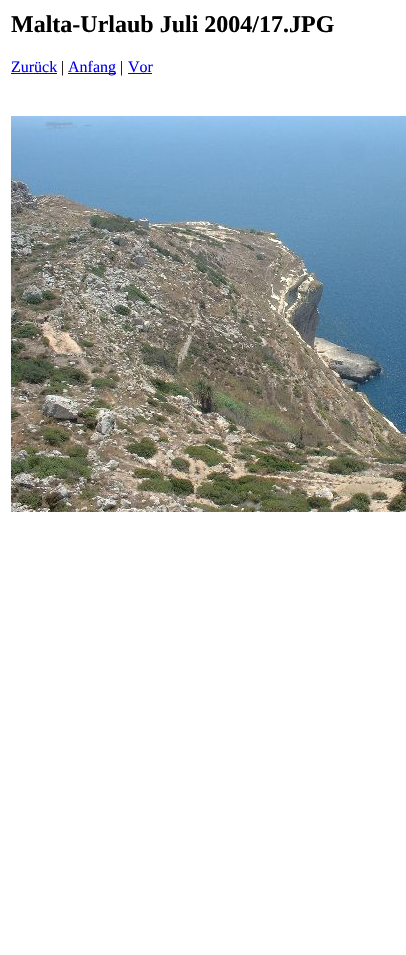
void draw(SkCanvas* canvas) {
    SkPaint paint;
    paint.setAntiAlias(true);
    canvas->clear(0xFFFFFFFF);
    SkFont font1(fontMgr->matchFamilyStyle("Liberation Serif", SkFontStyle::Bold()), 24);
    font1.setSubpixel(true);
    paint.setColor(0xFF000000);
    canvas->drawString("Malta-Urlaub Juli 2004/17.JPG", 11, 32, font1, paint);
    SkFont font2(fontMgr->matchFamilyStyle("Liberation Serif", SkFontStyle::Normal()), 16);
    font2.setSubpixel(true);
    paint.setColor(0xFF0000EE);
    canvas->drawString("Zurück", 11, 72, font2, paint);
    canvas->drawRect(SkRect::MakeXYWH(11, 73, 46, 1), paint);
    paint.setColor(0xFF000000);
    canvas->drawString("|", 61, 72, font2, paint);
    paint.setColor(0xFF0000EE);
    canvas->drawRect(SkRect::MakeXYWH(68, 73, 48, 1), paint);
    canvas->drawString("Anfang", 68, 72, font2, paint);
    paint.setColor(0xFF000000);
    canvas->drawString("|", 120, 72, font2, paint);
    paint.setColor(0xFF0000EE);
    canvas->drawString("Vor", 128, 72, font2, paint);
    canvas->drawRect(SkRect::MakeXYWH(128, 73, 24, 1), paint);
    canvas->drawImageRect(SkImages::DeferredFromEncodedData(SkData::MakeFromFileName("img1.png")), SkRect::MakeXYWH(11, 116, 395, 396), SkSamplingOptions());
}
